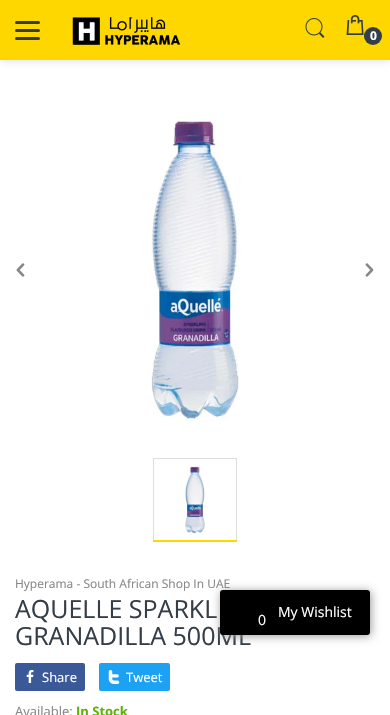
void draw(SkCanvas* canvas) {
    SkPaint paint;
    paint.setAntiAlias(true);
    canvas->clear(0xFFFFFFFF);
    paint.setColor(0xBFC9C9C9);
    paint.setMaskFilter(SkMaskFilter::MakeBlur(kNormal_SkBlurStyle, 4));
    canvas->drawRect(SkRect::MakeXYWH(0, 0, 390, 60), paint);
    paint.setMaskFilter(nullptr);
    paint.setColor(0xFFFED700);
    canvas->drawRect(SkRect::MakeXYWH(0, 0, 390, 60), paint);
    paint.setColor(0xFF333E48);
    canvas->drawRoundRect(SkRect::MakeXYWH(15, 21, 25, 3), 1.5f, 1.5f, paint);
    canvas->drawRoundRect(SkRect::MakeXYWH(15, 29, 25, 3), 1.5f, 1.5f, paint);
    canvas->drawRoundRect(SkRect::MakeXYWH(15, 37, 25, 3), 1.5f, 1.5f, paint);
    canvas->drawImageRect(SkImages::DeferredFromEncodedData(SkData::MakeFromFileName("img1.png")), SkRect::MakeXYWH(72, 17, 109, 28), SkSamplingOptions());
    canvas->drawImageRect(SkImages::DeferredFromEncodedData(SkData::MakeFromFileName("img2.png")), SkRect::MakeXYWH(305, 18, 20, 20), SkSamplingOptions());
    canvas->drawImageRect(SkImages::DeferredFromEncodedData(SkData::MakeFromFileName("img3.png")), SkRect::MakeXYWH(346, 15, 18, 20), SkSamplingOptions());
    canvas->drawCircle(373, 36, 9, paint);
    SkFont font1(fontMgr->matchFamilyStyle("Open Sans", SkFontStyle::Bold()), 12);
    font1.setSubpixel(true);
    paint.setColor(0xFFFFFFFF);
    canvas->drawString("0", 370, 40, font1, paint);
    canvas->drawImageRect(SkImages::DeferredFromEncodedData(SkData::MakeFromFileName("img4.png")), SkRect::MakeXYWH(151, 120, 89, 301), SkSamplingOptions());
    canvas->drawImageRect(SkImages::DeferredFromEncodedData(SkData::MakeFromFileName("img5.png")), SkRect::MakeXYWH(16, 263, 9, 14), SkSamplingOptions());
    canvas->drawImageRect(SkImages::DeferredFromEncodedData(SkData::MakeFromFileName("img6.png")), SkRect::MakeXYWH(365, 263, 9, 14), SkSamplingOptions());
    paint.setStyle(SkPaint::kStroke_Style);
    paint.setStrokeWidth(1);
    paint.setColor(0xFFDDDDDD);
    canvas->drawRect(SkRect::MakeXYWH(153.5f, 458.5f, 83, 83), paint);
    canvas->drawImageRect(SkImages::DeferredFromEncodedData(SkData::MakeFromFileName("img7.png")), SkRect::MakeXYWH(184, 466, 21, 69), SkSamplingOptions());
    paint.setStyle(SkPaint::kFill_Style);
    paint.setColor(0xFFFED700);
    canvas->drawRect(SkRect::MakeXYWH(153, 540, 84, 2), paint);
    SkFont font2(fontMgr->matchFamilyStyle("Open Sans", SkFontStyle::Normal()), 12);
    font2.setSubpixel(true);
    paint.setColor(0xFF878787);
    canvas->drawString("Hyperama - South African Shop In UAE", 15, 588, font2, paint);
    SkFont font3(fontMgr->matchFamilyStyle("Open Sans", SkFontStyle::Normal()), 25);
    font3.setSubpixel(true);
    paint.setColor(0xFF333E48);
    canvas->drawString("AQUELLE SPARKL", 15, 618, font3, paint);
    canvas->drawString("GRANADILLA 500ML", 15, 645, font3, paint);
    paint.setColor(0xFF3B5998);
    canvas->drawRoundRect(SkRect::MakeXYWH(15, 663, 70, 28), 2, 2, paint);
    canvas->drawImageRect(SkImages::DeferredFromEncodedData(SkData::MakeFromFileName("img8.png")), SkRect::MakeXYWH(26, 670, 8, 13), SkSamplingOptions());
    SkFont font4(fontMgr->matchFamilyStyle("Open Sans", SkFontStyle::Normal()), 13);
    font4.setSubpixel(true);
    paint.setColor(0xFFFFFFFF);
    canvas->drawString("Share", 42, 682, font4, paint);
    paint.setColor(0xFF1DA1F2);
    canvas->drawRoundRect(SkRect::MakeXYWH(99, 663, 71, 28), 2, 2, paint);
    canvas->drawImageRect(SkImages::DeferredFromEncodedData(SkData::MakeFromFileName("img9.png")), SkRect::MakeXYWH(108, 670, 12, 14), SkSamplingOptions());
    paint.setColor(0xFFFFFFFF);
    canvas->drawString("Tweet", 126, 682, font4, paint);
    paint.setColor(0xFF878787);
    canvas->drawString("Available:", 15, 716, font4, paint);
    SkFont font5(fontMgr->matchFamilyStyle("Open Sans", SkFontStyle::Bold()), 13);
    font5.setSubpixel(true);
    paint.setColor(0xFF5BB300);
    canvas->drawString("In Stock", 76, 716, font5, paint);
    paint.setColor(0xFF999999);
    paint.setMaskFilter(SkMaskFilter::MakeBlur(kNormal_SkBlurStyle, 5));
    canvas->drawRoundRect(SkRect::MakeXYWH(221, 591, 150, 45), 3, 3, paint);
    paint.setMaskFilter(nullptr);
    paint.setColor(0xFF000000);
    canvas->drawRoundRect(SkRect::MakeXYWH(220, 590, 150, 45), 3, 3, paint);
    SkFont font6(fontMgr->matchFamilyStyle("Open Sans", SkFontStyle::Normal()), 14);
    font6.setSubpixel(true);
    paint.setColor(0xFFFFFFFF);
    canvas->drawString("0", 258, 625, font6, paint);
    canvas->drawString("My Wishlist", 278, 617, font6, paint);
}
